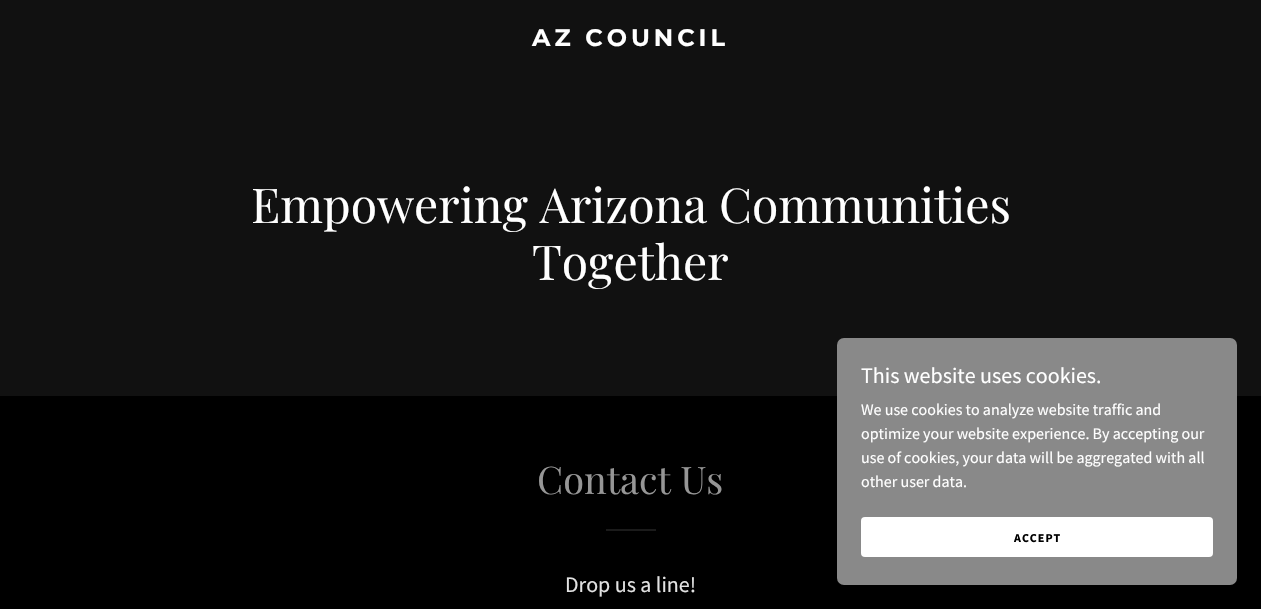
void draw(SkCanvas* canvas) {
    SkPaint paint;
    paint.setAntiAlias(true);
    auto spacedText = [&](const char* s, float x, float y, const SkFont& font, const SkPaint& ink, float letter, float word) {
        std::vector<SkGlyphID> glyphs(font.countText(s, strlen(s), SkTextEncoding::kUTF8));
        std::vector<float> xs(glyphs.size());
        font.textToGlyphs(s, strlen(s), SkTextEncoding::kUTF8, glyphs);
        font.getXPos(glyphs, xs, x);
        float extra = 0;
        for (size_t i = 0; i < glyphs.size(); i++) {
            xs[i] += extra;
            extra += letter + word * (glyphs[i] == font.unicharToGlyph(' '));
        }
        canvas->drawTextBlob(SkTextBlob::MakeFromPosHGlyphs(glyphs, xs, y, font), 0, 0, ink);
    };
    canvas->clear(0xFF000000);
    paint.setColor(0xFF111111);
    canvas->drawRect(SkRect::MakeXYWH(0, 0, 1261, 396), paint);
    SkFont font1(fontMgr->matchFamilyStyle("Montserrat", SkFontStyle::Bold()), 24);
    font1.setSubpixel(true);
    paint.setColor(0xFFFFFFFF);
    spacedText("AZ COUNCIL", 532, 46, font1, paint, 4, 0);
    SkFont font2(fontMgr->matchFamilyStyle("Playfair Display", SkFontStyle::Normal()), 48);
    font2.setSubpixel(true);
    canvas->drawString("Empowering Arizona Communities", 251, 223, font2, paint);
    canvas->drawString("Together", 532, 280, font2, paint);
    SkFont font3(fontMgr->matchFamilyStyle("Playfair Display", SkFontStyle::Normal()), 38);
    font3.setSubpixel(true);
    paint.setColor(0xFF969696);
    canvas->drawString("Contact Us", 537, 494, font3, paint);
    paint.setColor(0xFF1B1B1B);
    canvas->drawRect(SkRect::MakeXYWH(606, 529, 50, 2), paint);
    SkFont font4(fontMgr->matchFamilyStyle("Source Sans Pro", SkFontStyle::Normal()), 22);
    font4.setSubpixel(true);
    paint.setColor(0xFFE2E2E2);
    canvas->drawString("Drop us a line!", 565, 592, font4, paint);
    paint.setColor(0xFF898989);
    canvas->drawRoundRect(SkRect::MakeXYWH(837, 338, 400, 247), 7, 7, paint);
    paint.setColor(0xFFFFFFFF);
    canvas->drawString("This website uses cookies.", 861, 383, font4, paint);
    SkFont font5(fontMgr->matchFamilyStyle("Source Sans Pro", SkFontStyle::Normal()), 16);
    font5.setSubpixel(true);
    canvas->drawString("We use cookies to analyze website traffic and", 861, 415, font5, paint);
    canvas->drawString("optimize your website experience. By accepting our", 861, 439, font5, paint);
    canvas->drawString("use of cookies, your data will be aggregated with all", 861, 463, font5, paint);
    canvas->drawString("other user data.", 861, 487, font5, paint);
    canvas->drawRoundRect(SkRect::MakeXYWH(861, 517, 352, 40), 4, 4, paint);
    SkFont font6(fontMgr->matchFamilyStyle("Source Sans Pro", SkFontStyle::Bold()), 12);
    font6.setSubpixel(true);
    paint.setColor(0xFF000000);
    spacedText("ACCEPT", 1014, 542, font6, paint, 1, 0);
}
